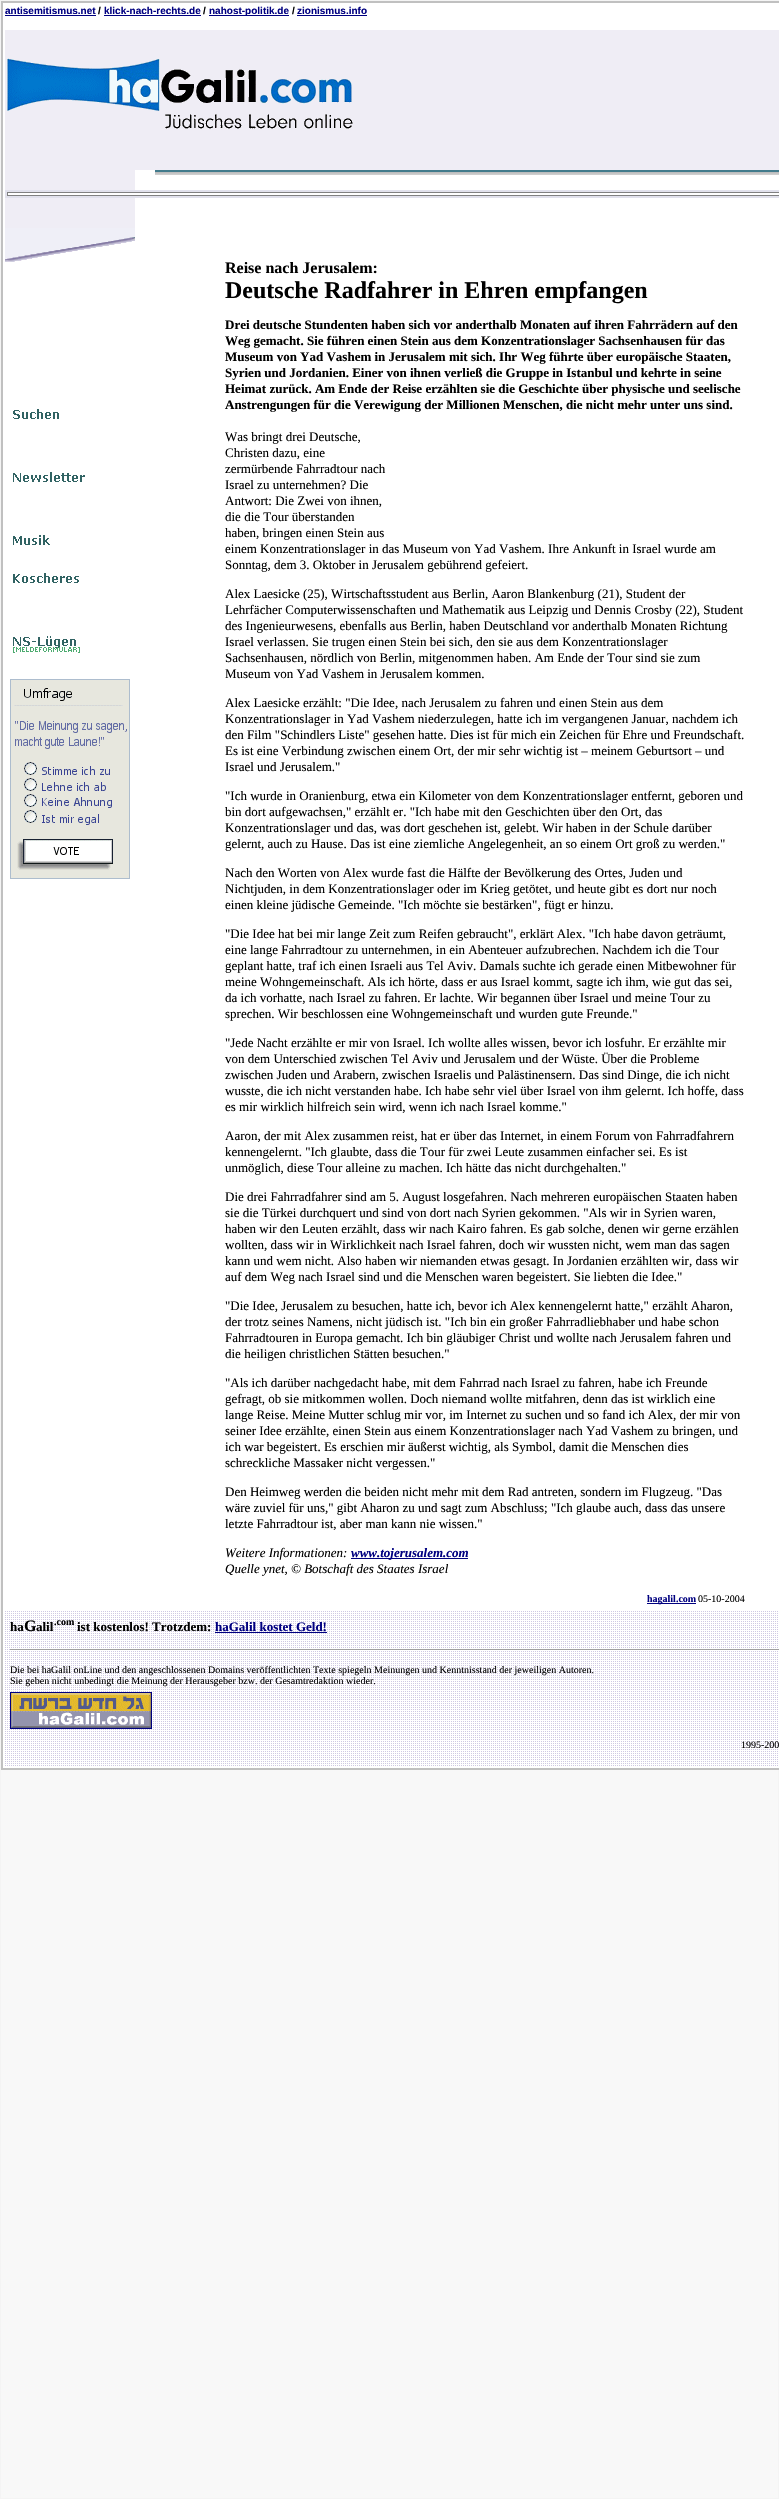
void draw(SkCanvas* canvas) {
    SkPaint paint;
    paint.setAntiAlias(true);
    canvas->clear(0xFFF8F8F8);
    paint.setStyle(SkPaint::kStroke_Style);
    paint.setStrokeWidth(1);
    paint.setColor(0xFFF4F4F4);
    canvas->drawRect(SkRect::MakeXYWH(0.5f, 0.5f, 778, 2498), paint);
    paint.setStyle(SkPaint::kFill_Style);
    paint.setColor(0xFFC0C0C0);
    canvas->drawRect(SkRect::MakeXYWH(1, 1, 778, 1769), paint);
    paint.setColor(0xFFFFFFFF);
    canvas->drawRect(SkRect::MakeXYWH(3, 3, 776, 1765), paint);
    SkFont font1(fontMgr->matchFamilyStyle("Liberation Sans", SkFontStyle::Bold()), 10);
    font1.setSubpixel(true);
    paint.setColor(0xFF000080);
    canvas->drawString("antisemitismus.net", 5, 14, font1, paint);
    canvas->drawRect(SkRect::MakeXYWH(5, 15, 91, 1), paint);
    paint.setColor(0xFF000000);
    canvas->drawString("/", 98, 14, font1, paint);
    paint.setColor(0xFF000080);
    canvas->drawString("klick-nach-rechts.de", 104, 14, font1, paint);
    canvas->drawRect(SkRect::MakeXYWH(104, 15, 97, 1), paint);
    paint.setColor(0xFF000000);
    canvas->drawString("/", 203, 14, font1, paint);
    paint.setColor(0xFF000080);
    canvas->drawRect(SkRect::MakeXYWH(209, 15, 80, 1), paint);
    canvas->drawString("nahost-politik.de", 209, 14, font1, paint);
    paint.setColor(0xFF000000);
    canvas->drawString("/", 292, 14, font1, paint);
    paint.setColor(0xFF000080);
    canvas->drawString("zionismus.info", 297, 14, font1, paint);
    canvas->drawRect(SkRect::MakeXYWH(297, 15, 70, 1), paint);
    paint.setColor(0xFFEFEDF5);
    canvas->drawRect(SkRect::MakeXYWH(5, 30, 774, 140), paint);
    canvas->drawImageRect(SkImages::DeferredFromEncodedData(SkData::MakeFromFileName("img1.png")), SkRect::MakeXYWH(7, 58, 346, 71), SkSamplingOptions());
    canvas->drawRect(SkRect::MakeXYWH(5, 170, 130, 20), paint);
    canvas->drawImageRect(SkImages::DeferredFromEncodedData(SkData::MakeFromFileName("img2.png")), SkRect::MakeXYWH(155, 170, 283, 5), SkSamplingOptions());
    canvas->drawImageRect(SkImages::DeferredFromEncodedData(SkData::MakeFromFileName("img3.png")), SkRect::MakeXYWH(438, 170, 284, 5), SkSamplingOptions());
    canvas->drawImageRect(SkImages::DeferredFromEncodedData(SkData::MakeFromFileName("img4.png")), SkRect::MakeXYWH(722, 170, 57, 5), SkSamplingOptions());
    paint.setColor(0xFFE1E1EC);
    canvas->drawRect(SkRect::MakeXYWH(5, 190, 774, 8), paint);
    paint.setColor(0xFF808080);
    canvas->drawRect(SkRect::MakeXYWH(7, 192, 772, 1), paint);
    canvas->drawRect(SkRect::MakeXYWH(7, 195, 772, 1), paint);
    canvas->drawRect(SkRect::MakeXYWH(7, 192, 1, 4), paint);
    paint.setColor(0xFFFFFFFF);
    canvas->drawRect(SkRect::MakeXYWH(8, 193, 771, 2), paint);
    paint.setColor(0xFFEFEDF5);
    canvas->drawRect(SkRect::MakeXYWH(5, 198, 130, 30), paint);
    canvas->drawImageRect(SkImages::DeferredFromEncodedData(SkData::MakeFromFileName("img5.png")), SkRect::MakeXYWH(5, 228, 130, 34), SkSamplingOptions());
    canvas->drawImageRect(SkImages::DeferredFromEncodedData(SkData::MakeFromFileName("img6.png")), SkRect::MakeXYWH(13, 409, 46, 10), SkSamplingOptions());
    canvas->drawImageRect(SkImages::DeferredFromEncodedData(SkData::MakeFromFileName("img7.png")), SkRect::MakeXYWH(13, 472, 72, 10), SkSamplingOptions());
    canvas->drawImageRect(SkImages::DeferredFromEncodedData(SkData::MakeFromFileName("img8.png")), SkRect::MakeXYWH(13, 535, 37, 10), SkSamplingOptions());
    canvas->drawImageRect(SkImages::DeferredFromEncodedData(SkData::MakeFromFileName("img9.png")), SkRect::MakeXYWH(13, 573, 66, 10), SkSamplingOptions());
    canvas->drawImageRect(SkImages::DeferredFromEncodedData(SkData::MakeFromFileName("img10.png")), SkRect::MakeXYWH(13, 636, 67, 17), SkSamplingOptions());
    canvas->drawImageRect(SkImages::DeferredFromEncodedData(SkData::MakeFromFileName("img11.png")), SkRect::MakeXYWH(10, 679, 120, 200), SkSamplingOptions());
    SkFont font2(fontMgr->matchFamilyStyle("Liberation Serif", SkFontStyle::Bold()), 16);
    font2.setSubpixel(true);
    paint.setColor(0xFF000000);
    canvas->drawString("Reise nach Jerusalem:", 225, 273, font2, paint);
    SkFont font3(fontMgr->matchFamilyStyle("Liberation Serif", SkFontStyle::Bold()), 24);
    font3.setSubpixel(true);
    canvas->drawString("Deutsche Radfahrer in Ehren empfangen", 225, 298, font3, paint);
    SkFont font4(fontMgr->matchFamilyStyle("Liberation Serif", SkFontStyle::Bold()), 13);
    font4.setSubpixel(true);
    canvas->drawString("Drei deutsche Stundenten haben sich vor anderthalb Monaten auf ihren Fahrrädern auf den", 225, 329, font4, paint);
    canvas->drawString("Weg gemacht. Sie führen einen Stein aus dem Konzentrationslager Sachsenhausen für das", 225, 345, font4, paint);
    canvas->drawString("Museum von Yad Vashem in Jerusalem mit sich. Ihr Weg führte über europäische Staaten,", 225, 361, font4, paint);
    canvas->drawString("Syrien und Jordanien. Einer von ihnen verließ die Gruppe in Istanbul und kehrte in seine", 225, 377, font4, paint);
    canvas->drawString("Heimat zurück. Am Ende der Reise erzählten sie die Geschichte über physische und seelische", 225, 393, font4, paint);
    canvas->drawString("Anstrengungen für die Verewigung der Millionen Menschen, die nicht mehr unter uns sind.", 225, 409, font4, paint);
    SkFont font5(fontMgr->matchFamilyStyle("Liberation Serif", SkFontStyle::Normal()), 13);
    font5.setSubpixel(true);
    canvas->drawString("Was bringt drei Deutsche,", 225, 441, font5, paint);
    canvas->drawString("Christen dazu, eine", 225, 457, font5, paint);
    canvas->drawString("zermürbende Fahrradtour nach", 225, 473, font5, paint);
    canvas->drawString("Israel zu unternehmen? Die", 225, 489, font5, paint);
    canvas->drawString("Antwort: Die Zwei von ihnen,", 225, 505, font5, paint);
    canvas->drawString("die die Tour überstanden", 225, 521, font5, paint);
    canvas->drawString("haben, bringen einen Stein aus", 225, 537, font5, paint);
    canvas->drawString("einem Konzentrationslager in das Museum von Yad Vashem. Ihre Ankunft in Israel wurde am", 225, 553, font5, paint);
    canvas->drawString("Sonntag, dem 3. Oktober in Jerusalem gebührend gefeiert.", 225, 569, font5, paint);
    canvas->drawString("Alex Laesicke (25), Wirtschaftsstudent aus Berlin, Aaron Blankenburg (21), Student der", 225, 598, font5, paint);
    canvas->drawString("Lehrfächer Computerwissenschaften und Mathematik aus Leipzig und Dennis Crosby (22), Student", 225, 614, font5, paint);
    canvas->drawString("des Ingenieurwesens, ebenfalls aus Berlin, haben Deutschland vor anderthalb Monaten Richtung", 225, 630, font5, paint);
    canvas->drawString("Israel verlassen. Sie trugen einen Stein bei sich, den sie aus dem Konzentrationslager", 225, 646, font5, paint);
    canvas->drawString("Sachsenhausen, nördlich von Berlin, mitgenommen haben. Am Ende der Tour sind sie zum", 225, 662, font5, paint);
    canvas->drawString("Museum von Yad Vashem in Jerusalem kommen.", 225, 678, font5, paint);
    canvas->drawString("Alex Laesicke erzählt: \"Die Idee, nach Jerusalem zu fahren und einen Stein aus dem", 225, 707, font5, paint);
    canvas->drawString("Konzentrationslager in Yad Vashem niederzulegen, hatte ich im vergangenen Januar, nachdem ich", 225, 723, font5, paint);
    canvas->drawString("den Film \"Schindlers Liste\" gesehen hatte. Dies ist für mich ein Zeichen für Ehre und Freundschaft.", 225, 739, font5, paint);
    canvas->drawString("Es ist eine Verbindung zwischen einem Ort, der mir sehr wichtig ist – meinem Geburtsort – und", 225, 755, font5, paint);
    canvas->drawString("Israel und Jerusalem.\"", 225, 771, font5, paint);
    canvas->drawString("\"Ich wurde in Oranienburg, etwa ein Kilometer von dem Konzentrationslager entfernt, geboren und", 225, 800, font5, paint);
    canvas->drawString("bin dort aufgewachsen,\" erzählt er. \"Ich habe mit den Geschichten über den Ort, das", 225, 816, font5, paint);
    canvas->drawString("Konzentrationslager und das, was dort geschehen ist, gelebt. Wir haben in der Schule darüber", 225, 832, font5, paint);
    canvas->drawString("gelernt, auch zu Hause. Das ist eine ziemliche Angelegenheit, an so einem Ort groß zu werden.\"", 225, 848, font5, paint);
    canvas->drawString("Nach den Worten von Alex wurde fast die Hälfte der Bevölkerung des Ortes, Juden und", 225, 877, font5, paint);
    canvas->drawString("Nichtjuden, in dem Konzentrationslager oder im Krieg getötet, und heute gibt es dort nur noch", 225, 893, font5, paint);
    canvas->drawString("einen kleine jüdische Gemeinde. \"Ich möchte sie bestärken\", fügt er hinzu.", 225, 909, font5, paint);
    canvas->drawString("\"Die Idee hat bei mir lange Zeit zum Reifen gebraucht\", erklärt Alex. \"Ich habe davon geträumt,", 225, 938, font5, paint);
    canvas->drawString("eine lange Fahrradtour zu unternehmen, in ein Abenteuer aufzubrechen. Nachdem ich die Tour", 225, 954, font5, paint);
    canvas->drawString("geplant hatte, traf ich einen Israeli aus Tel Aviv. Damals suchte ich gerade einen Mitbewohner für", 225, 970, font5, paint);
    canvas->drawString("meine Wohngemeinschaft. Als ich hörte, dass er aus Israel kommt, sagte ich ihm, wie gut das sei,", 225, 986, font5, paint);
    canvas->drawString("da ich vorhatte, nach Israel zu fahren. Er lachte. Wir begannen über Israel und meine Tour zu", 225, 1002, font5, paint);
    canvas->drawString("sprechen. Wir beschlossen eine Wohngemeinschaft und wurden gute Freunde.\"", 225, 1018, font5, paint);
    canvas->drawString("\"Jede Nacht erzählte er mir von Israel. Ich wollte alles wissen, bevor ich losfuhr. Er erzählte mir", 225, 1047, font5, paint);
    canvas->drawString("von dem Unterschied zwischen Tel Aviv und Jerusalem und der Wüste. Über die Probleme", 225, 1063, font5, paint);
    canvas->drawString("zwischen Juden und Arabern, zwischen Israelis und Palästinensern. Das sind Dinge, die ich nicht", 225, 1079, font5, paint);
    canvas->drawString("wusste, die ich nicht verstanden habe. Ich habe sehr viel über Israel von ihm gelernt. Ich hoffe, dass", 225, 1095, font5, paint);
    canvas->drawString("es mir wirklich hilfreich sein wird, wenn ich nach Israel komme.\"", 225, 1111, font5, paint);
    canvas->drawString("Aaron, der mit Alex zusammen reist, hat er über das Internet, in einem Forum von Fahrradfahrern", 225, 1140, font5, paint);
    canvas->drawString("kennengelernt. \"Ich glaubte, dass die Tour für zwei Leute zusammen einfacher sei. Es ist", 225, 1156, font5, paint);
    canvas->drawString("unmöglich, diese Tour alleine zu machen. Ich hätte das nicht durchgehalten.\"", 225, 1172, font5, paint);
    canvas->drawString("Die drei Fahrradfahrer sind am 5. August losgefahren. Nach mehreren europäischen Staaten haben", 225, 1201, font5, paint);
    canvas->drawString("sie die Türkei durchquert und sind von dort nach Syrien gekommen. \"Als wir in Syrien waren,", 225, 1217, font5, paint);
    canvas->drawString("haben wir den Leuten erzählt, dass wir nach Kairo fahren. Es gab solche, denen wir gerne erzählen", 225, 1233, font5, paint);
    canvas->drawString("wollten, dass wir in Wirklichkeit nach Israel fahren, doch wir wussten nicht, wem man das sagen", 225, 1249, font5, paint);
    canvas->drawString("kann und wem nicht. Also haben wir niemanden etwas gesagt. In Jordanien erzählten wir, dass wir", 225, 1265, font5, paint);
    canvas->drawString("auf dem Weg nach Israel sind und die Menschen waren begeistert. Sie liebten die Idee.\"", 225, 1281, font5, paint);
    canvas->drawString("\"Die Idee, Jerusalem zu besuchen, hatte ich, bevor ich Alex kennengelernt hatte,\" erzählt Aharon,", 225, 1310, font5, paint);
    canvas->drawString("der trotz seines Namens, nicht jüdisch ist. \"Ich bin ein großer Fahrradliebhaber und habe schon", 225, 1326, font5, paint);
    canvas->drawString("Fahrradtouren in Europa gemacht. Ich bin gläubiger Christ und wollte nach Jerusalem fahren und", 225, 1342, font5, paint);
    canvas->drawString("die heiligen christlichen Stätten besuchen.\"", 225, 1358, font5, paint);
    canvas->drawString("\"Als ich darüber nachgedacht habe, mit dem Fahrrad nach Israel zu fahren, habe ich Freunde", 225, 1387, font5, paint);
    canvas->drawString("gefragt, ob sie mitkommen wollen. Doch niemand wollte mitfahren, denn das ist wirklich eine", 225, 1403, font5, paint);
    canvas->drawString("lange Reise. Meine Mutter schlug mir vor, im Internet zu suchen und so fand ich Alex, der mir von", 225, 1419, font5, paint);
    canvas->drawString("seiner Idee erzählte, einen Stein aus einem Konzentrationslager nach Yad Vashem zu bringen, und", 225, 1435, font5, paint);
    canvas->drawString("ich war begeistert. Es erschien mir äußerst wichtig, als Symbol, damit die Menschen dies", 225, 1451, font5, paint);
    canvas->drawString("schreckliche Massaker nicht vergessen.\"", 225, 1467, font5, paint);
    canvas->drawString("Den Heimweg werden die beiden nicht mehr mit dem Rad antreten, sondern im Flugzeug. \"Das", 225, 1496, font5, paint);
    canvas->drawString("wäre zuviel für uns,\" gibt Aharon zu und sagt zum Abschluss; \"Ich glaube auch, dass das unsere", 225, 1512, font5, paint);
    canvas->drawString("letzte Fahrradtour ist, aber man kann nie wissen.\"", 225, 1528, font5, paint);
    SkFont font6(fontMgr->matchFamilyStyle("Liberation Serif", SkFontStyle::Italic()), 13);
    font6.setSubpixel(true);
    canvas->drawString("Weitere Informationen:", 225, 1557, font6, paint);
    paint.setColor(0xFF000080);
    canvas->drawRect(SkRect::MakeXYWH(351, 1558, 117, 1), paint);
    SkFont font7(fontMgr->matchFamilyStyle("Liberation Serif", SkFontStyle::BoldItalic()), 13);
    font7.setSubpixel(true);
    canvas->drawString("www.tojerusalem.com", 351, 1557, font7, paint);
    paint.setColor(0xFF000000);
    canvas->drawString("Quelle ynet, © Botschaft des Staates Israel", 225, 1573, font6, paint);
    paint.setColor(0xFF000080);
    canvas->drawRect(SkRect::MakeXYWH(647, 1603, 49, 1), paint);
    SkFont font8(fontMgr->matchFamilyStyle("Liberation Serif", SkFontStyle::Bold()), 10);
    font8.setSubpixel(true);
    canvas->drawString("hagalil.com", 647, 1602, font8, paint);
    SkFont font9(fontMgr->matchFamilyStyle("Liberation Serif", SkFontStyle::Normal()), 10);
    font9.setSubpixel(true);
    paint.setColor(0xFF000000);
    canvas->drawString("05-10-2004", 698, 1602, font9, paint);
    canvas->drawImageRect(SkImages::DeferredFromEncodedData(SkData::MakeFromFileName("img12.png")), SkRect::MakeXYWH(5, 1611, 773, 155), SkSamplingOptions());
    canvas->drawString("ha", 10, 1631, font4, paint);
    canvas->drawString("G", 24, 1631, font2, paint);
    canvas->drawString("alil", 36, 1631, font4, paint);
    canvas->drawString(".com", 54, 1625, font8, paint);
    canvas->drawString("ist kostenlos! Trotzdem:", 77, 1631, font4, paint);
    paint.setColor(0xFF000080);
    canvas->drawString("haGalil kostet Geld!", 215, 1631, font4, paint);
    canvas->drawRect(SkRect::MakeXYWH(215, 1632, 112, 1), paint);
    paint.setColor(0xFF9F9F9F);
    canvas->drawRect(SkRect::MakeXYWH(10, 1649, 769, 1), paint);
    paint.setColor(0xFF000000);
    canvas->drawString("Die bei haGalil onLine und den angeschlossenen Domains veröffentlichten Texte spiegeln Meinungen und Kenntnisstand der jeweiligen Autoren.", 10, 1673, font9, paint);
    canvas->drawString("Sie geben nicht unbedingt die Meinung der Herausgeber bzw. der Gesamtredaktion wieder.", 10, 1684, font9, paint);
    paint.setStyle(SkPaint::kStroke_Style);
    paint.setColor(0xFF000080);
    canvas->drawRect(SkRect::MakeXYWH(10.5f, 1692.5f, 141, 36), paint);
    canvas->drawImageRect(SkImages::DeferredFromEncodedData(SkData::MakeFromFileName("img13.png")), SkRect::MakeXYWH(11, 1693, 140, 35), SkSamplingOptions());
    paint.setStyle(SkPaint::kFill_Style);
    paint.setColor(0xFF000000);
    canvas->drawString("1995-200", 741, 1748, font9, paint);
}
